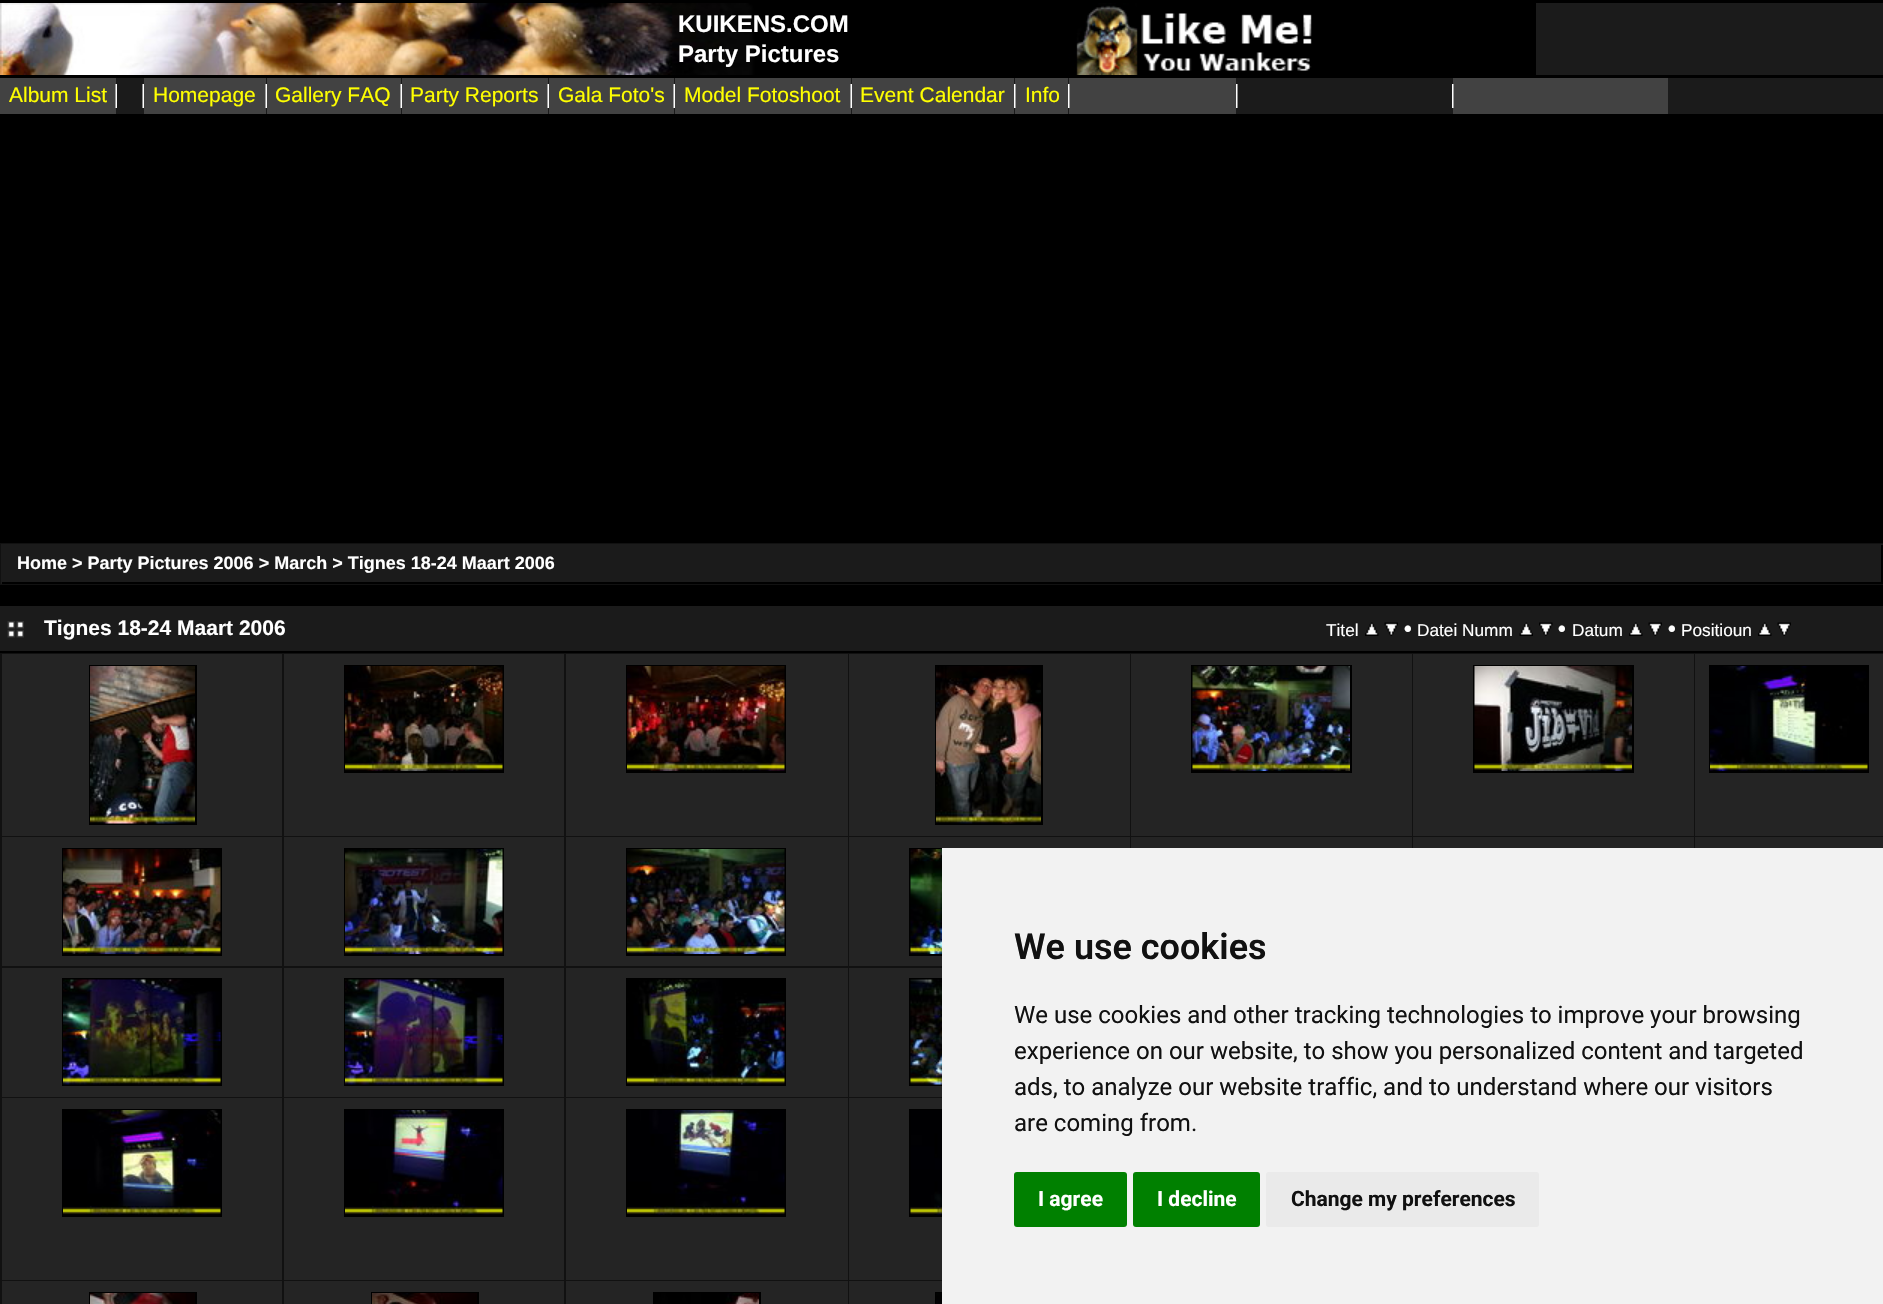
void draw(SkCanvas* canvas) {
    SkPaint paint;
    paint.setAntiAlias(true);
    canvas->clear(0xFF000000);
    paint.setColor(0xFF1B1B1B);
    canvas->drawRect(SkRect::MakeXYWH(1536, 3, 347, 72), paint);
    canvas->drawImageRect(SkImages::DeferredFromEncodedData(SkData::MakeFromFileName("img1.png")), SkRect::MakeXYWH(0, 3, 1536, 72), SkSamplingOptions());
    SkFont font1(fontMgr->matchFamilyStyle("Liberation Sans", SkFontStyle::Bold()), 24);
    font1.setSubpixel(true);
    paint.setColor(0xFFFFFFFF);
    canvas->drawString("KUIKENS.COM", 678, 32, font1, paint);
    canvas->drawString("Party Pictures", 678, 62, font1, paint);
    paint.setColor(0xFF1B1B1B);
    canvas->drawRect(SkRect::MakeXYWH(116, 78, 1767, 36), paint);
    paint.setColor(0xFF424242);
    canvas->drawRect(SkRect::MakeXYWH(0, 78, 116, 36), paint);
    canvas->drawImageRect(SkImages::DeferredFromEncodedData(SkData::MakeFromFileName("img2.png")), SkRect::MakeXYWH(115, 84, 2, 24), SkSamplingOptions());
    canvas->drawImageRect(SkImages::DeferredFromEncodedData(SkData::MakeFromFileName("img3.png")), SkRect::MakeXYWH(142, 84, 2, 24), SkSamplingOptions());
    canvas->drawRect(SkRect::MakeXYWH(144, 78, 122, 36), paint);
    canvas->drawImageRect(SkImages::DeferredFromEncodedData(SkData::MakeFromFileName("img2.png")), SkRect::MakeXYWH(265, 84, 2, 24), SkSamplingOptions());
    canvas->drawRect(SkRect::MakeXYWH(267, 78, 134, 36), paint);
    canvas->drawImageRect(SkImages::DeferredFromEncodedData(SkData::MakeFromFileName("img2.png")), SkRect::MakeXYWH(400, 84, 2, 24), SkSamplingOptions());
    canvas->drawRect(SkRect::MakeXYWH(402, 78, 146, 36), paint);
    canvas->drawImageRect(SkImages::DeferredFromEncodedData(SkData::MakeFromFileName("img2.png")), SkRect::MakeXYWH(547, 84, 2, 24), SkSamplingOptions());
    canvas->drawRect(SkRect::MakeXYWH(549, 78, 125, 36), paint);
    canvas->drawImageRect(SkImages::DeferredFromEncodedData(SkData::MakeFromFileName("img2.png")), SkRect::MakeXYWH(673, 84, 2, 24), SkSamplingOptions());
    canvas->drawRect(SkRect::MakeXYWH(675, 78, 176, 36), paint);
    canvas->drawImageRect(SkImages::DeferredFromEncodedData(SkData::MakeFromFileName("img2.png")), SkRect::MakeXYWH(850, 84, 2, 24), SkSamplingOptions());
    canvas->drawRect(SkRect::MakeXYWH(1015, 78, 53, 36), paint);
    canvas->drawImageRect(SkImages::DeferredFromEncodedData(SkData::MakeFromFileName("img4.png")), SkRect::MakeXYWH(1014, 84, 2, 24), SkSamplingOptions());
    canvas->drawRect(SkRect::MakeXYWH(1069, 78, 167, 36), paint);
    canvas->drawRect(SkRect::MakeXYWH(1453, 78, 215, 36), paint);
    SkFont font2(fontMgr->matchFamilyStyle("Liberation Sans", SkFontStyle::Normal()), 21);
    font2.setSubpixel(true);
    paint.setColor(0xFFFFFF00);
    canvas->drawString("Album List", 9, 102, font2, paint);
    canvas->drawString("Homepage", 153, 102, font2, paint);
    canvas->drawString("Gallery FAQ", 275, 102, font2, paint);
    canvas->drawString("Party Reports", 410, 102, font2, paint);
    canvas->drawString("Gala Foto's", 558, 102, font2, paint);
    canvas->drawString("Model Fotoshoot", 684, 102, font2, paint);
    paint.setColor(0xFF424242);
    canvas->drawRect(SkRect::MakeXYWH(852, 78, 162, 36), paint);
    paint.setColor(0xFFFFFF00);
    canvas->drawString("Event Calendar", 860, 102, font2, paint);
    canvas->drawString("Info", 1025, 102, font2, paint);
    canvas->drawImageRect(SkImages::DeferredFromEncodedData(SkData::MakeFromFileName("img4.png")), SkRect::MakeXYWH(1068, 84, 2, 24), SkSamplingOptions());
    canvas->drawImageRect(SkImages::DeferredFromEncodedData(SkData::MakeFromFileName("img5.png")), SkRect::MakeXYWH(1236, 84, 2, 24), SkSamplingOptions());
    canvas->drawImageRect(SkImages::DeferredFromEncodedData(SkData::MakeFromFileName("img4.png")), SkRect::MakeXYWH(1452, 84, 2, 24), SkSamplingOptions());
    paint.setColor(0xFF111111);
    canvas->drawRect(SkRect::MakeXYWH(0, 543, 1883, 42), paint);
    paint.setColor(0xFF1B1B1B);
    canvas->drawRect(SkRect::MakeXYWH(1, 544, 1882, 40), paint);
    paint.setColor(0xFF000000);
    canvas->drawRect(SkRect::MakeXYWH(1881, 545, 2, 39), paint);
    canvas->drawRect(SkRect::MakeXYWH(2, 582, 1881, 2), paint);
    SkFont font3(fontMgr->matchFamilyStyle("Liberation Sans", SkFontStyle::Bold()), 18);
    font3.setSubpixel(true);
    paint.setColor(0xFFFFFFFF);
    canvas->drawString("Home > Party Pictures 2006 > March > Tignes 18-24 Maart 2006", 17, 569, font3, paint);
    paint.setColor(0xFF1B1B1B);
    canvas->drawRect(SkRect::MakeXYWH(0, 606, 1883, 45), paint);
    canvas->drawImageRect(SkImages::DeferredFromEncodedData(SkData::MakeFromFileName("img6.png")), SkRect::MakeXYWH(7, 621, 17, 17), SkSamplingOptions());
    SkFont font4(fontMgr->matchFamilyStyle("Liberation Sans", SkFontStyle::Bold()), 21);
    font4.setSubpixel(true);
    paint.setColor(0xFFFFFFFF);
    canvas->drawString("Tignes 18-24 Maart 2006", 44, 635, font4, paint);
    SkFont font5(fontMgr->matchFamilyStyle("Liberation Sans", SkFontStyle::Normal()), 17.25f);
    font5.setSubpixel(true);
    canvas->drawString("Titel", 1326, 636, font5, paint);
    canvas->drawImageRect(SkImages::DeferredFromEncodedData(SkData::MakeFromFileName("img7.png")), SkRect::MakeXYWH(1365, 622, 14, 14), SkSamplingOptions());
    canvas->drawImageRect(SkImages::DeferredFromEncodedData(SkData::MakeFromFileName("img8.png")), SkRect::MakeXYWH(1384, 622, 14, 14), SkSamplingOptions());
    SkFont font6(fontMgr->matchFamilyStyle("Liberation Sans", SkFontStyle::Bold()), 22);
    font6.setSubpixel(true);
    canvas->drawString("•", 1404, 636, font6, paint);
    canvas->drawString("Datei Numm", 1417, 636, font5, paint);
    canvas->drawImageRect(SkImages::DeferredFromEncodedData(SkData::MakeFromFileName("img9.png")), SkRect::MakeXYWH(1519, 622, 14, 14), SkSamplingOptions());
    canvas->drawImageRect(SkImages::DeferredFromEncodedData(SkData::MakeFromFileName("img10.png")), SkRect::MakeXYWH(1539, 622, 14, 14), SkSamplingOptions());
    canvas->drawString("•", 1558, 636, font6, paint);
    canvas->drawString("Datum", 1572, 636, font5, paint);
    canvas->drawImageRect(SkImages::DeferredFromEncodedData(SkData::MakeFromFileName("img11.png")), SkRect::MakeXYWH(1629, 622, 14, 14), SkSamplingOptions());
    canvas->drawImageRect(SkImages::DeferredFromEncodedData(SkData::MakeFromFileName("img12.png")), SkRect::MakeXYWH(1648, 622, 14, 14), SkSamplingOptions());
    canvas->drawString("•", 1668, 636, font6, paint);
    canvas->drawString("Positioun", 1681, 636, font5, paint);
    canvas->drawImageRect(SkImages::DeferredFromEncodedData(SkData::MakeFromFileName("img11.png")), SkRect::MakeXYWH(1758, 622, 14, 14), SkSamplingOptions());
    canvas->drawImageRect(SkImages::DeferredFromEncodedData(SkData::MakeFromFileName("img12.png")), SkRect::MakeXYWH(1777, 622, 14, 14), SkSamplingOptions());
    paint.setColor(0xFF111111);
    canvas->drawRect(SkRect::MakeXYWH(0, 653, 1883, 651), paint);
    paint.setColor(0xFF242424);
    canvas->drawRect(SkRect::MakeXYWH(2, 654, 280, 182), paint);
    paint.setStyle(SkPaint::kStroke_Style);
    paint.setStrokeWidth(2);
    paint.setColor(0xFF000000);
    canvas->drawRect(SkRect::MakeXYWH(90, 666, 106, 158), paint);
    canvas->drawImageRect(SkImages::DeferredFromEncodedData(SkData::MakeFromFileName("img13.png")), SkRect::MakeXYWH(90, 666, 105, 158), SkSamplingOptions());
    paint.setStyle(SkPaint::kFill_Style);
    paint.setColor(0xFF242424);
    canvas->drawRect(SkRect::MakeXYWH(284, 654, 280, 182), paint);
    paint.setStyle(SkPaint::kStroke_Style);
    paint.setColor(0xFF000000);
    canvas->drawRect(SkRect::MakeXYWH(345, 666, 158, 106), paint);
    canvas->drawImageRect(SkImages::DeferredFromEncodedData(SkData::MakeFromFileName("img14.png")), SkRect::MakeXYWH(345, 666, 158, 105), SkSamplingOptions());
    paint.setStyle(SkPaint::kFill_Style);
    paint.setColor(0xFF242424);
    canvas->drawRect(SkRect::MakeXYWH(566, 654, 282, 182), paint);
    paint.setStyle(SkPaint::kStroke_Style);
    paint.setColor(0xFF000000);
    canvas->drawRect(SkRect::MakeXYWH(627, 666, 158, 106), paint);
    canvas->drawImageRect(SkImages::DeferredFromEncodedData(SkData::MakeFromFileName("img15.png")), SkRect::MakeXYWH(627, 666, 158, 105), SkSamplingOptions());
    paint.setStyle(SkPaint::kFill_Style);
    paint.setColor(0xFF242424);
    canvas->drawRect(SkRect::MakeXYWH(849, 654, 281, 182), paint);
    paint.setStyle(SkPaint::kStroke_Style);
    paint.setColor(0xFF000000);
    canvas->drawRect(SkRect::MakeXYWH(936, 666, 106, 158), paint);
    canvas->drawImageRect(SkImages::DeferredFromEncodedData(SkData::MakeFromFileName("img16.png")), SkRect::MakeXYWH(936, 666, 105, 158), SkSamplingOptions());
    paint.setStyle(SkPaint::kFill_Style);
    paint.setColor(0xFF242424);
    canvas->drawRect(SkRect::MakeXYWH(1131, 654, 281, 182), paint);
    paint.setStyle(SkPaint::kStroke_Style);
    paint.setColor(0xFF000000);
    canvas->drawRect(SkRect::MakeXYWH(1192, 666, 159, 106), paint);
    canvas->drawImageRect(SkImages::DeferredFromEncodedData(SkData::MakeFromFileName("img17.png")), SkRect::MakeXYWH(1192, 666, 158, 105), SkSamplingOptions());
    paint.setStyle(SkPaint::kFill_Style);
    paint.setColor(0xFF242424);
    canvas->drawRect(SkRect::MakeXYWH(1413, 654, 281, 182), paint);
    paint.setStyle(SkPaint::kStroke_Style);
    paint.setColor(0xFF000000);
    canvas->drawRect(SkRect::MakeXYWH(1474, 666, 159, 106), paint);
    canvas->drawImageRect(SkImages::DeferredFromEncodedData(SkData::MakeFromFileName("img18.png")), SkRect::MakeXYWH(1474, 666, 158, 105), SkSamplingOptions());
    paint.setStyle(SkPaint::kFill_Style);
    paint.setColor(0xFF242424);
    canvas->drawRect(SkRect::MakeXYWH(1695, 654, 188, 182), paint);
    paint.setStyle(SkPaint::kStroke_Style);
    paint.setColor(0xFF000000);
    canvas->drawRect(SkRect::MakeXYWH(1710, 666, 158, 106), paint);
    canvas->drawImageRect(SkImages::DeferredFromEncodedData(SkData::MakeFromFileName("img19.png")), SkRect::MakeXYWH(1710, 666, 158, 105), SkSamplingOptions());
    paint.setStyle(SkPaint::kFill_Style);
    paint.setColor(0xFF242424);
    canvas->drawRect(SkRect::MakeXYWH(2, 837, 280, 129), paint);
    paint.setStyle(SkPaint::kStroke_Style);
    paint.setColor(0xFF000000);
    canvas->drawRect(SkRect::MakeXYWH(63, 849, 158, 106), paint);
    canvas->drawImageRect(SkImages::DeferredFromEncodedData(SkData::MakeFromFileName("img20.png")), SkRect::MakeXYWH(63, 849, 158, 105), SkSamplingOptions());
    paint.setStyle(SkPaint::kFill_Style);
    paint.setColor(0xFF242424);
    canvas->drawRect(SkRect::MakeXYWH(284, 837, 280, 129), paint);
    paint.setStyle(SkPaint::kStroke_Style);
    paint.setColor(0xFF000000);
    canvas->drawRect(SkRect::MakeXYWH(345, 849, 158, 106), paint);
    canvas->drawImageRect(SkImages::DeferredFromEncodedData(SkData::MakeFromFileName("img21.png")), SkRect::MakeXYWH(345, 849, 158, 105), SkSamplingOptions());
    paint.setStyle(SkPaint::kFill_Style);
    paint.setColor(0xFF242424);
    canvas->drawRect(SkRect::MakeXYWH(566, 837, 282, 129), paint);
    paint.setStyle(SkPaint::kStroke_Style);
    paint.setColor(0xFF000000);
    canvas->drawRect(SkRect::MakeXYWH(627, 849, 158, 106), paint);
    canvas->drawImageRect(SkImages::DeferredFromEncodedData(SkData::MakeFromFileName("img22.png")), SkRect::MakeXYWH(627, 849, 158, 105), SkSamplingOptions());
    paint.setStyle(SkPaint::kFill_Style);
    paint.setColor(0xFF242424);
    canvas->drawRect(SkRect::MakeXYWH(849, 837, 281, 129), paint);
    paint.setStyle(SkPaint::kStroke_Style);
    paint.setColor(0xFF000000);
    canvas->drawRect(SkRect::MakeXYWH(910, 849, 159, 106), paint);
    canvas->drawImageRect(SkImages::DeferredFromEncodedData(SkData::MakeFromFileName("img23.png")), SkRect::MakeXYWH(910, 849, 32, 105), SkSamplingOptions());
    paint.setStyle(SkPaint::kFill_Style);
    paint.setColor(0xFF242424);
    canvas->drawRect(SkRect::MakeXYWH(1131, 837, 281, 11), paint);
    canvas->drawRect(SkRect::MakeXYWH(1413, 837, 281, 11), paint);
    canvas->drawRect(SkRect::MakeXYWH(1695, 837, 188, 11), paint);
    canvas->drawRect(SkRect::MakeXYWH(2, 968, 280, 129), paint);
    paint.setStyle(SkPaint::kStroke_Style);
    paint.setColor(0xFF000000);
    canvas->drawRect(SkRect::MakeXYWH(63, 979, 158, 106), paint);
    canvas->drawImageRect(SkImages::DeferredFromEncodedData(SkData::MakeFromFileName("img24.png")), SkRect::MakeXYWH(63, 979, 158, 106), SkSamplingOptions());
    paint.setStyle(SkPaint::kFill_Style);
    paint.setColor(0xFF242424);
    canvas->drawRect(SkRect::MakeXYWH(284, 968, 280, 129), paint);
    paint.setStyle(SkPaint::kStroke_Style);
    paint.setColor(0xFF000000);
    canvas->drawRect(SkRect::MakeXYWH(345, 979, 158, 106), paint);
    canvas->drawImageRect(SkImages::DeferredFromEncodedData(SkData::MakeFromFileName("img25.png")), SkRect::MakeXYWH(345, 979, 158, 106), SkSamplingOptions());
    paint.setStyle(SkPaint::kFill_Style);
    paint.setColor(0xFF242424);
    canvas->drawRect(SkRect::MakeXYWH(566, 968, 282, 129), paint);
    paint.setStyle(SkPaint::kStroke_Style);
    paint.setColor(0xFF000000);
    canvas->drawRect(SkRect::MakeXYWH(627, 979, 158, 106), paint);
    canvas->drawImageRect(SkImages::DeferredFromEncodedData(SkData::MakeFromFileName("img26.png")), SkRect::MakeXYWH(627, 979, 158, 106), SkSamplingOptions());
    paint.setStyle(SkPaint::kFill_Style);
    paint.setColor(0xFF242424);
    canvas->drawRect(SkRect::MakeXYWH(849, 968, 93, 129), paint);
    paint.setStyle(SkPaint::kStroke_Style);
    paint.setColor(0xFF000000);
    canvas->drawRect(SkRect::MakeXYWH(910, 979, 159, 106), paint);
    canvas->drawImageRect(SkImages::DeferredFromEncodedData(SkData::MakeFromFileName("img27.png")), SkRect::MakeXYWH(910, 979, 32, 106), SkSamplingOptions());
    paint.setStyle(SkPaint::kFill_Style);
    paint.setColor(0xFF242424);
    canvas->drawRect(SkRect::MakeXYWH(2, 1098, 280, 182), paint);
    paint.setStyle(SkPaint::kStroke_Style);
    paint.setColor(0xFF000000);
    canvas->drawRect(SkRect::MakeXYWH(63, 1110, 158, 106), paint);
    canvas->drawImageRect(SkImages::DeferredFromEncodedData(SkData::MakeFromFileName("img28.png")), SkRect::MakeXYWH(63, 1110, 158, 105), SkSamplingOptions());
    paint.setStyle(SkPaint::kFill_Style);
    paint.setColor(0xFF242424);
    canvas->drawRect(SkRect::MakeXYWH(284, 1098, 280, 182), paint);
    paint.setStyle(SkPaint::kStroke_Style);
    paint.setColor(0xFF000000);
    canvas->drawRect(SkRect::MakeXYWH(345, 1110, 158, 106), paint);
    canvas->drawImageRect(SkImages::DeferredFromEncodedData(SkData::MakeFromFileName("img29.png")), SkRect::MakeXYWH(345, 1110, 158, 105), SkSamplingOptions());
    paint.setStyle(SkPaint::kFill_Style);
    paint.setColor(0xFF242424);
    canvas->drawRect(SkRect::MakeXYWH(566, 1098, 282, 182), paint);
    paint.setStyle(SkPaint::kStroke_Style);
    paint.setColor(0xFF000000);
    canvas->drawRect(SkRect::MakeXYWH(627, 1110, 158, 106), paint);
    canvas->drawImageRect(SkImages::DeferredFromEncodedData(SkData::MakeFromFileName("img30.png")), SkRect::MakeXYWH(627, 1110, 158, 105), SkSamplingOptions());
    paint.setStyle(SkPaint::kFill_Style);
    paint.setColor(0xFF242424);
    canvas->drawRect(SkRect::MakeXYWH(849, 1098, 93, 182), paint);
    paint.setStyle(SkPaint::kStroke_Style);
    paint.setColor(0xFF000000);
    canvas->drawRect(SkRect::MakeXYWH(910, 1110, 159, 106), paint);
    canvas->drawImageRect(SkImages::DeferredFromEncodedData(SkData::MakeFromFileName("img31.png")), SkRect::MakeXYWH(910, 1110, 32, 105), SkSamplingOptions());
    paint.setStyle(SkPaint::kFill_Style);
    paint.setColor(0xFF242424);
    canvas->drawRect(SkRect::MakeXYWH(2, 1281, 280, 23), paint);
    paint.setStyle(SkPaint::kStroke_Style);
    paint.setColor(0xFF000000);
    canvas->drawRect(SkRect::MakeXYWH(90, 1293, 106, 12), paint);
    canvas->drawImageRect(SkImages::DeferredFromEncodedData(SkData::MakeFromFileName("img32.png")), SkRect::MakeXYWH(90, 1293, 105, 11), SkSamplingOptions());
    paint.setStyle(SkPaint::kFill_Style);
    paint.setColor(0xFF242424);
    canvas->drawRect(SkRect::MakeXYWH(284, 1281, 280, 23), paint);
    paint.setStyle(SkPaint::kStroke_Style);
    paint.setColor(0xFF000000);
    canvas->drawRect(SkRect::MakeXYWH(372, 1293, 106, 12), paint);
    canvas->drawImageRect(SkImages::DeferredFromEncodedData(SkData::MakeFromFileName("img33.png")), SkRect::MakeXYWH(372, 1293, 105, 11), SkSamplingOptions());
    paint.setStyle(SkPaint::kFill_Style);
    paint.setColor(0xFF242424);
    canvas->drawRect(SkRect::MakeXYWH(566, 1281, 282, 23), paint);
    paint.setStyle(SkPaint::kStroke_Style);
    paint.setColor(0xFF000000);
    canvas->drawRect(SkRect::MakeXYWH(654, 1293, 106, 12), paint);
    canvas->drawImageRect(SkImages::DeferredFromEncodedData(SkData::MakeFromFileName("img34.png")), SkRect::MakeXYWH(655, 1293, 104, 11), SkSamplingOptions());
    paint.setStyle(SkPaint::kFill_Style);
    paint.setColor(0xFF242424);
    canvas->drawRect(SkRect::MakeXYWH(849, 1281, 93, 23), paint);
    paint.setStyle(SkPaint::kStroke_Style);
    paint.setColor(0xFF000000);
    canvas->drawRect(SkRect::MakeXYWH(936, 1293, 106, 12), paint);
    canvas->drawImageRect(SkImages::DeferredFromEncodedData(SkData::MakeFromFileName("img35.png")), SkRect::MakeXYWH(936, 1293, 6, 11), SkSamplingOptions());
    paint.setStyle(SkPaint::kFill_Style);
    paint.setColor(0xFFF2F2F2);
    canvas->drawRect(SkRect::MakeXYWH(942, 848, 941, 456), paint);
    SkFont font7(fontMgr->matchFamilyStyle("Roboto", SkFontStyle(600, SkFontStyle::kNormal_Width, SkFontStyle::kUpright_Slant)), 36);
    font7.setSubpixel(true);
    paint.setColor(0xFF111111);
    canvas->drawString("We use cookies", 1014, 959, font7, paint);
    SkFont font8(fontMgr->matchFamilyStyle("Roboto", SkFontStyle::Normal()), 24);
    font8.setSubpixel(true);
    canvas->drawString("We use cookies and other tracking technologies to improve your browsing", 1014, 1023, font8, paint);
    canvas->drawString("experience on our website, to show you personalized content and targeted", 1014, 1059, font8, paint);
    canvas->drawString("ads, to analyze our website traffic, and to understand where our visitors", 1014, 1095, font8, paint);
    canvas->drawString("are coming from.", 1014, 1131, font8, paint);
    paint.setColor(0xFF008000);
    canvas->drawRoundRect(SkRect::MakeXYWH(1014, 1172, 113, 55), 3, 3, paint);
    SkFont font9(fontMgr->matchFamilyStyle("Roboto", SkFontStyle::Bold()), 21);
    font9.setSubpixel(true);
    paint.setColor(0xFFFFFFFF);
    canvas->drawString("I agree", 1038, 1206, font9, paint);
    paint.setColor(0xFF008000);
    canvas->drawRoundRect(SkRect::MakeXYWH(1133, 1172, 127, 55), 3, 3, paint);
    paint.setColor(0xFFFFFFFF);
    canvas->drawString("I decline", 1157, 1206, font9, paint);
    paint.setColor(0xFFEAEAEA);
    canvas->drawRoundRect(SkRect::MakeXYWH(1266, 1172, 273, 55), 3, 3, paint);
    paint.setColor(0xFF111111);
    canvas->drawString("Change my preferences", 1291, 1206, font9, paint);
}
